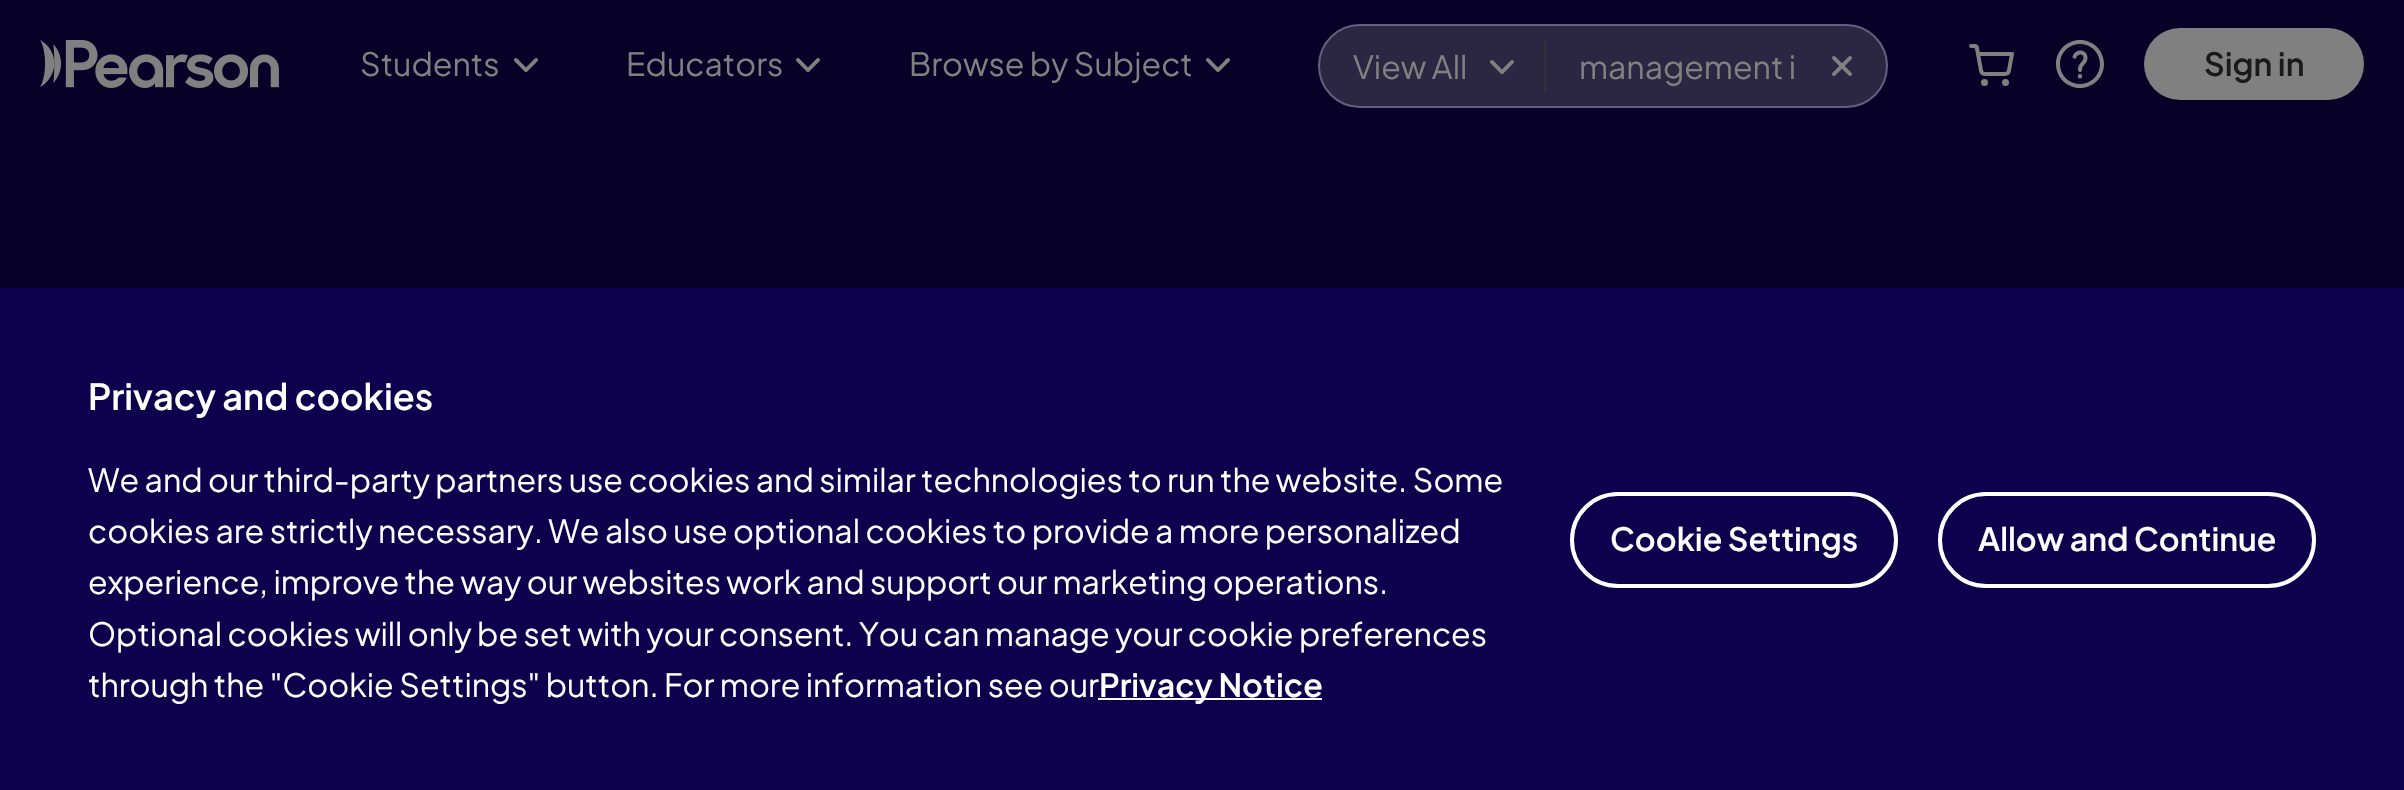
void draw(SkCanvas* canvas) {
    SkPaint paint;
    paint.setAntiAlias(true);
    canvas->clear(0xFF070027);
    canvas->drawImageRect(SkImages::DeferredFromEncodedData(SkData::MakeFromFileName("img1.png")), SkRect::MakeXYWH(40, 40, 239, 48), SkSamplingOptions());
    SkFont font1(fontMgr->matchFamilyStyle("Plus Jakarta Sans", SkFontStyle::Normal()), 32);
    font1.setSubpixel(true);
    paint.setColor(0xFF808080);
    canvas->drawString("Students", 360, 76, font1, paint);
    canvas->drawImageRect(SkImages::DeferredFromEncodedData(SkData::MakeFromFileName("img2.png")), SkRect::MakeXYWH(513, 58, 25, 14), SkSamplingOptions());
    canvas->drawString("Educators", 626, 76, font1, paint);
    canvas->drawImageRect(SkImages::DeferredFromEncodedData(SkData::MakeFromFileName("img2.png")), SkRect::MakeXYWH(795, 58, 25, 14), SkSamplingOptions());
    canvas->drawString("Browse by Subject", 909, 76, font1, paint);
    canvas->drawImageRect(SkImages::DeferredFromEncodedData(SkData::MakeFromFileName("img2.png")), SkRect::MakeXYWH(1205, 58, 25, 14), SkSamplingOptions());
    paint.setColor(0xFF2B2641);
    canvas->drawRoundRect(SkRect::MakeXYWH(1319, 25, 568, 82), 41, 41, paint);
    paint.setStyle(SkPaint::kStroke_Style);
    paint.setStrokeWidth(2);
    paint.setColor(0xFF616080);
    canvas->drawRoundRect(SkRect::MakeXYWH(1319, 25, 568, 82), 41, 41, paint);
    paint.setStyle(SkPaint::kFill_Style);
    paint.setColor(0xFF808080);
    canvas->drawString("View All", 1353, 79, font1, paint);
    canvas->drawImageRect(SkImages::DeferredFromEncodedData(SkData::MakeFromFileName("img3.png")), SkRect::MakeXYWH(1489, 60, 25, 14), SkSamplingOptions());
    paint.setColor(0xFF333138);
    canvas->drawRect(SkRect::MakeXYWH(1544, 40, 2, 52), paint);
    paint.setColor(0xFF808080);
    canvas->drawString("management i", 1579, 79, font1, paint);
    canvas->drawImageRect(SkImages::DeferredFromEncodedData(SkData::MakeFromFileName("img4.png")), SkRect::MakeXYWH(1832, 56, 20, 20), SkSamplingOptions());
    canvas->drawImageRect(SkImages::DeferredFromEncodedData(SkData::MakeFromFileName("img5.png")), SkRect::MakeXYWH(1969, 44, 45, 42), SkSamplingOptions());
    canvas->drawImageRect(SkImages::DeferredFromEncodedData(SkData::MakeFromFileName("img6.png")), SkRect::MakeXYWH(2056, 40, 48, 48), SkSamplingOptions());
    canvas->drawRoundRect(SkRect::MakeXYWH(2144, 28, 220, 72), 36, 36, paint);
    SkFont font2(fontMgr->matchFamilyStyle("Plus Jakarta Sans", SkFontStyle(600, SkFontStyle::kNormal_Width, SkFontStyle::kUpright_Slant)), 32);
    font2.setSubpixel(true);
    paint.setColor(0xFF1A1A1A);
    canvas->drawString("Sign in", 2204, 76, font2, paint);
    paint.setColor(0xFF0D004D);
    canvas->drawRect(SkRect::MakeXYWH(0, 288, 2404, 502), paint);
    SkFont font3(fontMgr->matchFamilyStyle("Plus Jakarta Sans", SkFontStyle(600, SkFontStyle::kNormal_Width, SkFontStyle::kUpright_Slant)), 36);
    font3.setSubpixel(true);
    paint.setColor(0xFFFFFFFF);
    canvas->drawString("Privacy and cookies", 88, 410, font3, paint);
    canvas->drawString("We and our third-party partners use cookies and similar technologies to run the website. Some", 88, 492, font1, paint);
    canvas->drawString("cookies are strictly necessary. We also use optional cookies to provide a more personalized", 88, 543, font1, paint);
    canvas->drawString("experience, improve the way our websites work and support our marketing operations.", 88, 594, font1, paint);
    canvas->drawString("Optional cookies will only be set with your consent. You can manage your cookie preferences", 88, 646, font1, paint);
    canvas->drawString("through the \"Cookie Settings\" button. For more information see our", 88, 697, font1, paint);
    paint.setColor(0xFFFEFEFE);
    canvas->drawRect(SkRect::MakeXYWH(1098, 698, 224, 2), paint);
    paint.setColor(0xFFFFFFFF);
    canvas->drawString("Privacy Notice", 1099, 697, font2, paint);
    paint.setStyle(SkPaint::kStroke_Style);
    paint.setStrokeWidth(4);
    canvas->drawRoundRect(SkRect::MakeXYWH(1572, 494, 324, 92), 46, 46, paint);
    paint.setStyle(SkPaint::kFill_Style);
    canvas->drawString("Cookie Settings", 1610, 551, font2, paint);
    paint.setStyle(SkPaint::kStroke_Style);
    canvas->drawRoundRect(SkRect::MakeXYWH(1940, 494, 374, 92), 46, 46, paint);
    paint.setStyle(SkPaint::kFill_Style);
    canvas->drawString("Allow and Continue", 1978, 551, font2, paint);
}
